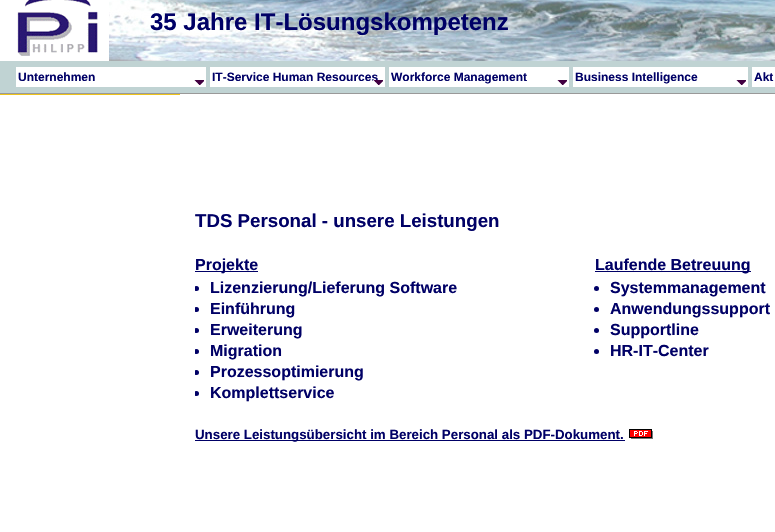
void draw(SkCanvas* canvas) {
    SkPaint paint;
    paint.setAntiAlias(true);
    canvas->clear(0xFFFFFFFF);
    canvas->drawImageRect(SkImages::DeferredFromEncodedData(SkData::MakeFromFileName("img1.png")), SkRect::MakeXYWH(109, 0, 666, 61), SkSamplingOptions());
    canvas->drawImageRect(SkImages::DeferredFromEncodedData(SkData::MakeFromFileName("img2.png")), SkRect::MakeXYWH(0, 0, 109, 61), SkSamplingOptions());
    SkFont font1(fontMgr->matchFamilyStyle("Liberation Sans", SkFontStyle::Bold()), 24);
    font1.setSubpixel(true);
    paint.setColor(0xFF000066);
    canvas->drawString("35 Jahre IT-Lösungskompetenz", 150, 30, font1, paint);
    paint.setColor(0xFFC0D3D3);
    canvas->drawRect(SkRect::MakeXYWH(0, 61, 775, 32), paint);
    paint.setColor(0xFF999999);
    canvas->drawRect(SkRect::MakeXYWH(0, 93, 775, 1), paint);
    paint.setColor(0xFFEDC31B);
    canvas->drawRect(SkRect::MakeXYWH(0, 94, 180, 1), paint);
    SkFont font2(fontMgr->matchFamilyStyle("Liberation Sans", SkFontStyle::Bold()), 18.7f);
    font2.setSubpixel(true);
    paint.setColor(0xFF000066);
    canvas->drawString("TDS Personal - unsere Leistungen", 195, 227, font2, paint);
    canvas->drawRect(SkRect::MakeXYWH(195, 271, 63, 1), paint);
    SkFont font3(fontMgr->matchFamilyStyle("Liberation Sans", SkFontStyle::Bold()), 16);
    font3.setSubpixel(true);
    canvas->drawString("Projekte", 195, 270, font3, paint);
    canvas->save();
    canvas->clipRect(SkRect::MakeXYWH(195, 94, 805, 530));
    canvas->drawCircle(196.5f, 288.5f, 2.5f, paint);
    canvas->restore();
    canvas->drawString("Lizenzierung/Lieferung Software", 210, 293, font3, paint);
    canvas->save();
    canvas->clipRect(SkRect::MakeXYWH(195, 94, 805, 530));
    canvas->drawCircle(196.5f, 309.5f, 2.5f, paint);
    canvas->restore();
    canvas->drawString("Einführung", 210, 314, font3, paint);
    canvas->save();
    canvas->clipRect(SkRect::MakeXYWH(195, 94, 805, 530));
    canvas->drawCircle(196.5f, 330.5f, 2.5f, paint);
    canvas->restore();
    canvas->drawString("Erweiterung", 210, 335, font3, paint);
    canvas->save();
    canvas->clipRect(SkRect::MakeXYWH(195, 94, 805, 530));
    canvas->drawCircle(196.5f, 351.5f, 2.5f, paint);
    canvas->restore();
    canvas->drawString("Migration", 210, 356, font3, paint);
    canvas->save();
    canvas->clipRect(SkRect::MakeXYWH(195, 94, 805, 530));
    canvas->drawCircle(196.5f, 372.5f, 2.5f, paint);
    canvas->restore();
    canvas->drawString("Prozessoptimierung", 210, 377, font3, paint);
    canvas->save();
    canvas->clipRect(SkRect::MakeXYWH(195, 94, 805, 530));
    canvas->drawCircle(196.5f, 393.5f, 2.5f, paint);
    canvas->restore();
    canvas->drawString("Komplettservice", 210, 398, font3, paint);
    canvas->drawRect(SkRect::MakeXYWH(595, 271, 156, 1), paint);
    canvas->drawString("Laufende Betreuung", 595, 270, font3, paint);
    canvas->drawCircle(596.5f, 288.5f, 2.5f, paint);
    canvas->drawString("Systemmanagement", 610, 293, font3, paint);
    canvas->drawCircle(596.5f, 309.5f, 2.5f, paint);
    canvas->drawString("Anwendungssupport", 610, 314, font3, paint);
    canvas->drawCircle(596.5f, 330.5f, 2.5f, paint);
    canvas->drawString("Supportline", 610, 335, font3, paint);
    canvas->drawCircle(596.5f, 351.5f, 2.5f, paint);
    canvas->drawString("HR-IT-Center", 610, 356, font3, paint);
    canvas->drawRect(SkRect::MakeXYWH(195, 440, 430, 1), paint);
    SkFont font4(fontMgr->matchFamilyStyle("Liberation Sans", SkFontStyle::Bold()), 13.3f);
    font4.setSubpixel(true);
    canvas->drawString("Unsere Leistungsübersicht im Bereich Personal als PDF-Dokument.", 195, 439, font4, paint);
    canvas->drawImageRect(SkImages::DeferredFromEncodedData(SkData::MakeFromFileName("img3.png")), SkRect::MakeXYWH(629, 429, 24, 10), SkSamplingOptions());
    paint.setColor(0xFFFFFFFF);
    canvas->drawRect(SkRect::MakeXYWH(16, 67, 190, 20), paint);
    SkFont font5(fontMgr->matchFamilyStyle("Liberation Sans", SkFontStyle::Bold()), 12);
    font5.setSubpixel(true);
    paint.setColor(0xFF000066);
    canvas->drawString("Unternehmen", 18, 81, font5, paint);
    canvas->drawImageRect(SkImages::DeferredFromEncodedData(SkData::MakeFromFileName("img4.png")), SkRect::MakeXYWH(194, 80, 10, 5), SkSamplingOptions());
    paint.setColor(0xFFFFFFFF);
    canvas->drawRect(SkRect::MakeXYWH(210, 67, 175, 20), paint);
    paint.setColor(0xFF000066);
    canvas->drawString("IT-Service Human Resources", 212, 81, font5, paint);
    canvas->drawImageRect(SkImages::DeferredFromEncodedData(SkData::MakeFromFileName("img5.png")), SkRect::MakeXYWH(373, 80, 10, 5), SkSamplingOptions());
    paint.setColor(0xFFFFFFFF);
    canvas->drawRect(SkRect::MakeXYWH(389, 67, 180, 20), paint);
    paint.setColor(0xFF000066);
    canvas->drawString("Workforce Management", 391, 81, font5, paint);
    canvas->drawImageRect(SkImages::DeferredFromEncodedData(SkData::MakeFromFileName("img4.png")), SkRect::MakeXYWH(557, 80, 10, 5), SkSamplingOptions());
    paint.setColor(0xFFFFFFFF);
    canvas->drawRect(SkRect::MakeXYWH(573, 67, 175, 20), paint);
    paint.setColor(0xFF000066);
    canvas->drawString("Business Intelligence", 575, 81, font5, paint);
    canvas->drawImageRect(SkImages::DeferredFromEncodedData(SkData::MakeFromFileName("img4.png")), SkRect::MakeXYWH(736, 80, 10, 5), SkSamplingOptions());
    paint.setColor(0xFFFFFFFF);
    canvas->drawRect(SkRect::MakeXYWH(752, 67, 23, 20), paint);
    paint.setColor(0xFF000066);
    canvas->drawString("Akt", 754, 81, font5, paint);
}
